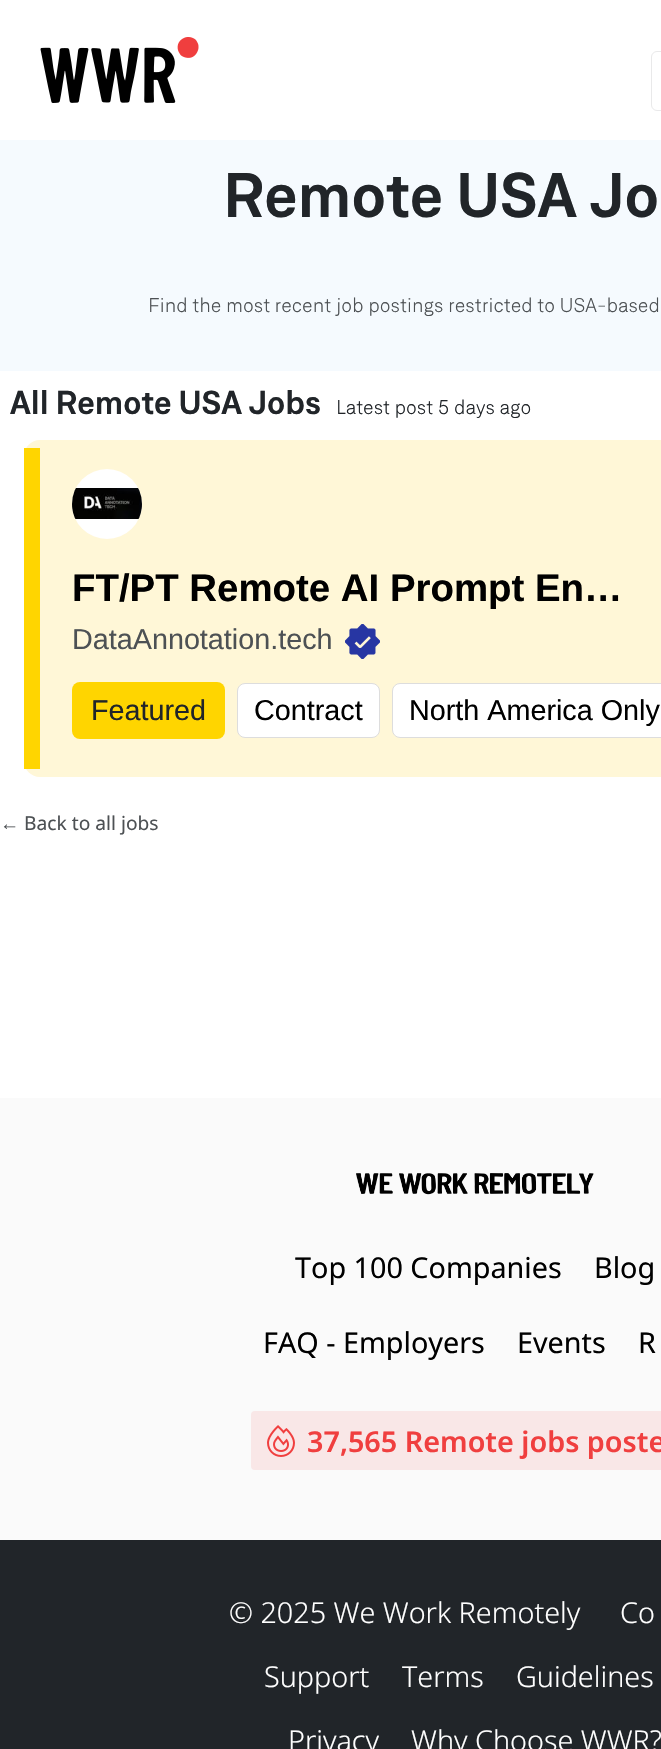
void draw(SkCanvas* canvas) {
    SkPaint paint;
    paint.setAntiAlias(true);
    canvas->clear(0xFFFFFFFF);
    canvas->drawImageRect(SkImages::DeferredFromEncodedData(SkData::MakeFromFileName("img1.png")), SkRect::MakeXYWH(40, 37, 159, 66), SkSamplingOptions());
    paint.setStyle(SkPaint::kStroke_Style);
    paint.setStrokeWidth(1);
    paint.setColor(0xFFE9E9EA);
    canvas->drawRoundRect(SkRect::MakeXYWH(651.5f, 51.5f, 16, 59), 5.5f, 5.5f, paint);
    paint.setStyle(SkPaint::kFill_Style);
    paint.setColor(0xFFF5FAFE);
    canvas->drawRect(SkRect::MakeXYWH(0, 140, 661, 231), paint);
    SkFont font1(fontMgr->matchFamilyStyle("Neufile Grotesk", SkFontStyle(600, SkFontStyle::kNormal_Width, SkFontStyle::kUpright_Slant)), 60.75f);
    font1.setSubpixel(true);
    paint.setColor(0xFF212529);
    canvas->drawString("Remote USA Jo", 223, 217, font1, paint);
    SkFont font2(fontMgr->matchFamilyStyle("Neufile Grotesk", SkFontStyle(300, SkFontStyle::kNormal_Width, SkFontStyle::kUpright_Slant)), 19.2f);
    font2.setSubpixel(true);
    paint.setColor(0xFF4D5154);
    canvas->drawString("Find the most recent job postings restricted to USA-based", 148, 312, font2, paint);
    SkFont font3(fontMgr->matchFamilyStyle("Neufile Grotesk", SkFontStyle(600, SkFontStyle::kNormal_Width, SkFontStyle::kUpright_Slant)), 32);
    font3.setSubpixel(true);
    paint.setColor(0xFF212529);
    canvas->drawString("All Remote USA Jobs", 10, 414, font3, paint);
    canvas->drawString("Latest post 5 days ago", 336, 414, font2, paint);
    paint.setColor(0xFFFFF7D7);
    canvas->drawRoundRect(SkRect::MakeXYWH(24, 440, 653, 337), 16, 16, paint);
    paint.setColor(0xFFFFD500);
    canvas->drawRect(SkRect::MakeXYWH(24, 448, 16, 321), paint);
    paint.setColor(0xFFFFFFFF);
    canvas->drawCircle(107, 504, 35, paint);
    canvas->drawImageRect(SkImages::DeferredFromEncodedData(SkData::MakeFromFileName("img2.png")), SkRect::MakeXYWH(72, 488, 70, 31), SkSamplingOptions());
    SkFont font4(fontMgr->matchFamilyStyle("Liberation Sans", SkFontStyle::Bold()), 38.4f);
    font4.setSubpixel(true);
    paint.setColor(0xFF000000);
    canvas->drawString("FT/PT Remote AI Prompt En…", 72, 601, font4, paint);
    SkFont font5(fontMgr->matchFamilyStyle("Liberation Sans", SkFontStyle::Normal()), 28.75f);
    font5.setSubpixel(true);
    paint.setColor(0xFF4D5154);
    canvas->drawString("DataAnnotation.tech", 72, 649, font5, paint);
    canvas->drawImageRect(SkImages::DeferredFromEncodedData(SkData::MakeFromFileName("img3.png")), SkRect::MakeXYWH(345, 624, 35, 35), SkSamplingOptions());
    paint.setColor(0xFFFFD500);
    canvas->drawRoundRect(SkRect::MakeXYWH(72, 682, 153, 57), 8, 8, paint);
    paint.setColor(0xFF212529);
    canvas->drawString("Featured", 91, 720, font5, paint);
    paint.setColor(0xFFFFFFFF);
    canvas->drawRoundRect(SkRect::MakeXYWH(237.5f, 683.5f, 142, 54), 7.5f, 7.5f, paint);
    paint.setStyle(SkPaint::kStroke_Style);
    paint.setColor(0xFFDDDDDD);
    canvas->drawRoundRect(SkRect::MakeXYWH(237.5f, 683.5f, 142, 54), 7.5f, 7.5f, paint);
    paint.setStyle(SkPaint::kFill_Style);
    paint.setColor(0xFF000000);
    canvas->drawString("Contract", 254, 720, font5, paint);
    paint.setColor(0xFFFFFFFF);
    canvas->drawRoundRect(SkRect::MakeXYWH(392.5f, 683.5f, 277, 54), 7.5f, 7.5f, paint);
    paint.setStyle(SkPaint::kStroke_Style);
    paint.setColor(0xFFDDDDDD);
    canvas->drawRoundRect(SkRect::MakeXYWH(392.5f, 683.5f, 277, 54), 7.5f, 7.5f, paint);
    paint.setStyle(SkPaint::kFill_Style);
    paint.setColor(0xFF000000);
    canvas->drawString("North America Only", 409, 720, font5, paint);
    SkFont font6(fontMgr->matchFamilyStyle("Liberation Sans", SkFontStyle::Normal()), 19.2f);
    font6.setSubpixel(true);
    paint.setColor(0xFF4D5154);
    canvas->drawString("←", 0, 830, font6, paint);
    SkFont font7(fontMgr->matchFamilyStyle("Noto Sans", SkFontStyle::Normal()), 19.2f);
    font7.setSubpixel(true);
    canvas->drawString("Back to all jobs", 24, 830, font7, paint);
    paint.setColor(0xFFFAFAFA);
    canvas->drawRect(SkRect::MakeXYWH(0, 1098, 661, 442), paint);
    canvas->drawImageRect(SkImages::DeferredFromEncodedData(SkData::MakeFromFileName("img4.png")), SkRect::MakeXYWH(356, 1173, 238, 22), SkSamplingOptions());
    SkFont font8(fontMgr->matchFamilyStyle("Noto Sans", SkFontStyle::Normal()), 28.75f);
    font8.setSubpixel(true);
    paint.setColor(0xFF000000);
    canvas->drawString("Top 100 Companies", 295, 1278, font8, paint);
    canvas->drawString("Blog", 594, 1278, font8, paint);
    canvas->drawString("FAQ - Employers", 263, 1353, font8, paint);
    canvas->drawString("Events", 517, 1353, font8, paint);
    canvas->drawString("R", 638, 1353, font8, paint);
    paint.setColor(0xFFF9E7E7);
    canvas->drawRoundRect(SkRect::MakeXYWH(251, 1411, 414, 59), 4, 4, paint);
    canvas->drawImageRect(SkImages::DeferredFromEncodedData(SkData::MakeFromFileName("img5.png")), SkRect::MakeXYWH(267, 1425, 28, 32), SkSamplingOptions());
    SkFont font9(fontMgr->matchFamilyStyle("Noto Sans", SkFontStyle(600, SkFontStyle::kNormal_Width, SkFontStyle::kUpright_Slant)), 28.75f);
    font9.setSubpixel(true);
    paint.setColor(0xFFF03F3F);
    canvas->drawString("37,565 Remote jobs poste", 307, 1452, font9, paint);
    paint.setColor(0xFF212529);
    canvas->drawRect(SkRect::MakeXYWH(0, 1540, 661, 209), paint);
    SkFont font10(fontMgr->matchFamilyStyle("Noto Sans", SkFontStyle(300, SkFontStyle::kNormal_Width, SkFontStyle::kUpright_Slant)), 28.75f);
    font10.setSubpixel(true);
    paint.setColor(0xFFFFFFFF);
    canvas->drawString("© 2025 We Work Remotely", 229, 1623, font10, paint);
    canvas->drawString("Co", 620, 1623, font10, paint);
    canvas->drawString("Support", 264, 1687, font10, paint);
    canvas->drawString("Terms", 402, 1687, font10, paint);
    canvas->drawString("Guidelines", 516, 1687, font10, paint);
    canvas->drawString("Privacy", 288, 1751, font10, paint);
    canvas->drawString("Why Choose WWR?", 411, 1751, font10, paint);
}
